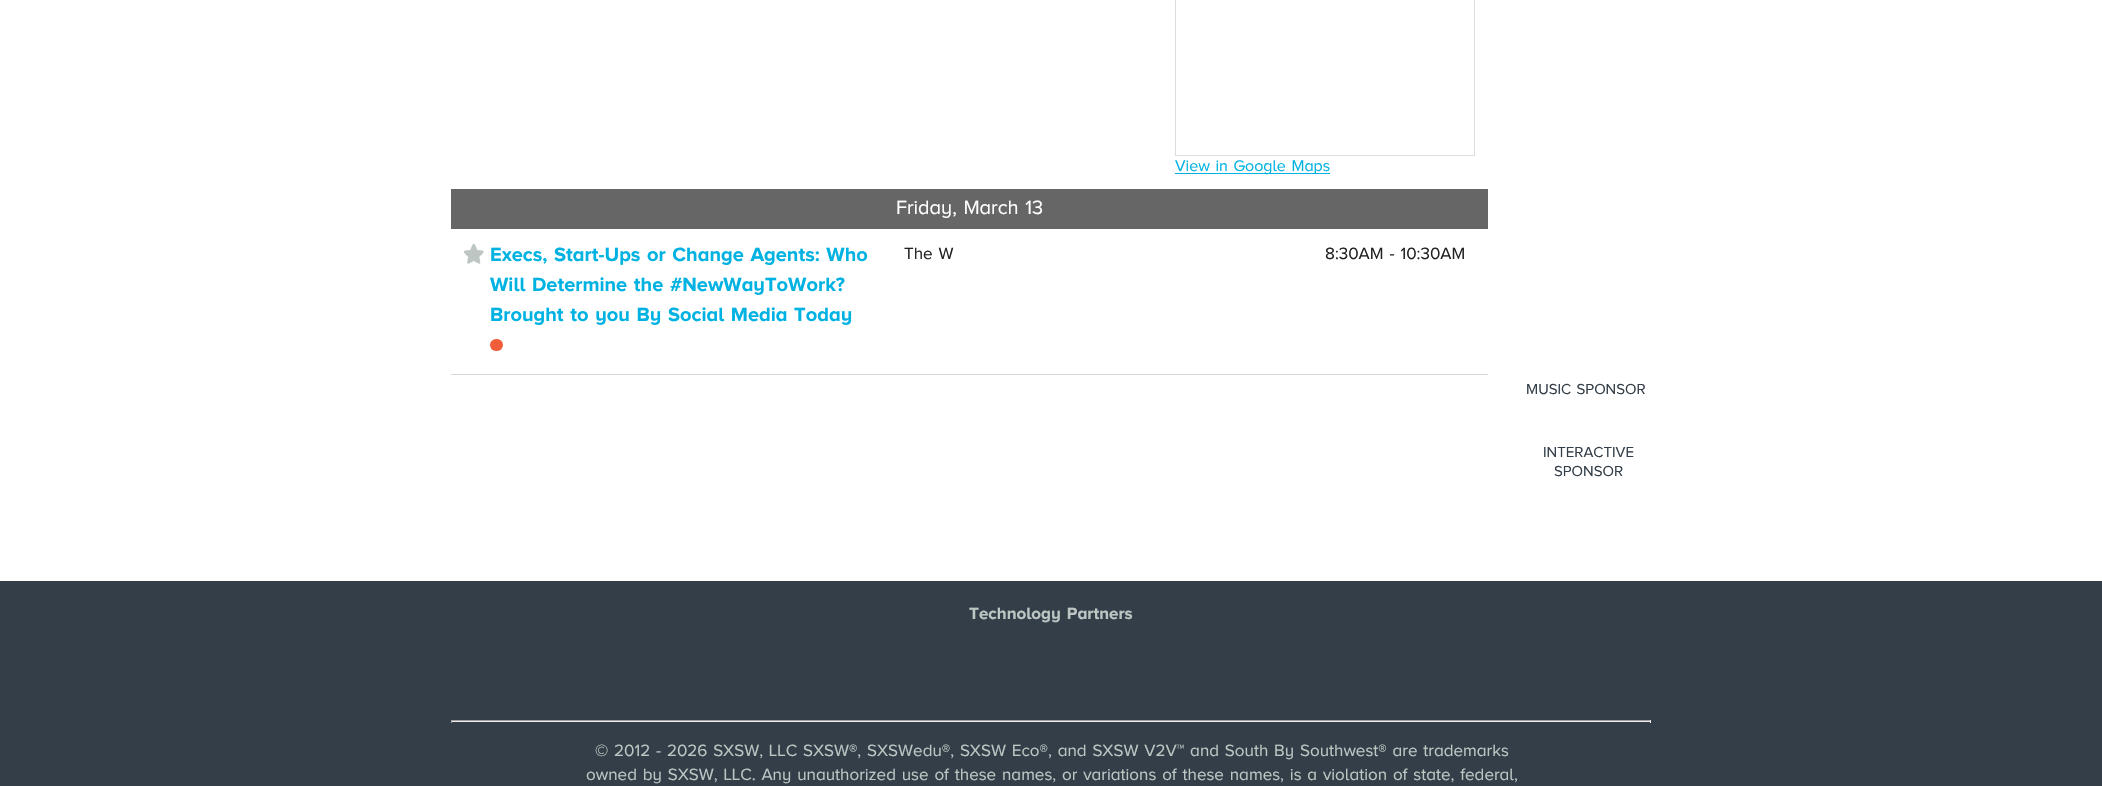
void draw(SkCanvas* canvas) {
    SkPaint paint;
    paint.setAntiAlias(true);
    auto spacedText = [&](const char* s, float x, float y, const SkFont& font, const SkPaint& ink, float letter, float word) {
        std::vector<SkGlyphID> glyphs(font.countText(s, strlen(s), SkTextEncoding::kUTF8));
        std::vector<float> xs(glyphs.size());
        font.textToGlyphs(s, strlen(s), SkTextEncoding::kUTF8, glyphs);
        font.getXPos(glyphs, xs, x);
        float extra = 0;
        for (size_t i = 0; i < glyphs.size(); i++) {
            xs[i] += extra;
            extra += letter + word * (glyphs[i] == font.unicharToGlyph(' '));
        }
        canvas->drawTextBlob(SkTextBlob::MakeFromPosHGlyphs(glyphs, xs, y, font), 0, 0, ink);
    };
    canvas->clear(0xFFFFFFFF);
    paint.setStyle(SkPaint::kStroke_Style);
    paint.setStrokeWidth(1);
    paint.setColor(0xFFDDDDDD);
    canvas->drawRect(SkRect::MakeXYWH(1175.5f, -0.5f, 299, 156), paint);
    paint.setStyle(SkPaint::kFill_Style);
    paint.setColor(0xFF00B2E2);
    canvas->drawRect(SkRect::MakeXYWH(1175, 173, 155, 1), paint);
    SkFont font1(fontMgr->matchFamilyStyle("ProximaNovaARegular", SkFontStyle::Normal()), 16);
    font1.setSubpixel(true);
    spacedText("View in Google Maps", 1175, 171, font1, paint, 0, 1.5f);
    paint.setColor(0xFF666666);
    canvas->drawRect(SkRect::MakeXYWH(451, 189, 1037, 40), paint);
    SkFont font2(fontMgr->matchFamilyStyle("ProximaNovaARegular", SkFontStyle::Normal()), 20);
    font2.setSubpixel(true);
    paint.setColor(0xFFFFFFFF);
    spacedText("Friday, March 13", 896, 214, font2, paint, 0, 1.5f);
    paint.setColor(0xFFD7D7D7);
    canvas->drawRect(SkRect::MakeXYWH(451, 374, 1037, 1), paint);
    canvas->drawImageRect(SkImages::DeferredFromEncodedData(SkData::MakeFromFileName("img1.png")), SkRect::MakeXYWH(464, 243, 20, 21), SkSamplingOptions());
    SkFont font3(fontMgr->matchFamilyStyle("ProximaNovaARegular", SkFontStyle::Bold()), 20);
    font3.setSubpixel(true);
    paint.setColor(0xFF00B2E2);
    spacedText("Execs, Start-Ups or Change Agents: Who", 490, 261, font3, paint, 0, 1.5f);
    spacedText("Will Determine the #NewWayToWork?", 490, 291, font3, paint, 0, 1.5f);
    spacedText("Brought to you By Social Media Today", 490, 321, font3, paint, 0, 1.5f);
    paint.setColor(0xFFF15C3B);
    canvas->drawRoundRect(SkRect::MakeXYWH(490, 339, 13, 12), 6, 6, paint);
    SkFont font4(fontMgr->matchFamilyStyle("ProximaNovaARegular", SkFontStyle::Normal()), 17);
    font4.setSubpixel(true);
    paint.setColor(0xFF222222);
    spacedText("The W", 904, 259, font4, paint, 0, 1.5f);
    spacedText("8:30AM - 10:30AM", 1325, 259, font4, paint, 0, 1.5f);
    SkFont font5(fontMgr->matchFamilyStyle("ProximaNovaARegular", SkFontStyle::Normal()), 15);
    font5.setSubpixel(true);
    paint.setColor(0xFF333E48);
    spacedText("MUSIC SPONSOR", 1526, 394, font5, paint, 0, 1.5f);
    canvas->drawString("INTERACTIVE", 1543, 457, font5, paint);
    canvas->drawString("SPONSOR", 1554, 476, font5, paint);
    canvas->drawRect(SkRect::MakeXYWH(0, 581, 2102, 205), paint);
    SkFont font6(fontMgr->matchFamilyStyle("ProximaNovaARegular", SkFontStyle::Bold()), 17);
    font6.setSubpixel(true);
    paint.setColor(0xFFBDC6C3);
    spacedText("Technology Partners", 969, 619, font6, paint, 0, 1.5f);
    paint.setColor(0xFF9F9F9F);
    canvas->drawRect(SkRect::MakeXYWH(451, 720, 1200, 1), paint);
    paint.setColor(0xFFEEEEEE);
    canvas->drawRect(SkRect::MakeXYWH(1650, 720, 1, 3), paint);
    canvas->drawRect(SkRect::MakeXYWH(451, 721, 1200, 1), paint);
    paint.setColor(0xFF9F9F9F);
    canvas->drawRect(SkRect::MakeXYWH(451, 720, 1, 3), paint);
    paint.setColor(0xFFBDC6C3);
    spacedText("© 2012 - 2026 SXSW, LLC SXSW®, SXSWedu®, SXSW Eco®, and SXSW V2V™ and South By Southwest® are trademarks", 595, 756, font4, paint, 0, 1.4f);
    spacedText("owned by SXSW, LLC. Any unauthorized use of these names, or variations of these names, is a violation of state, federal,", 586, 780, font4, paint, 0, 1.4f);
}
